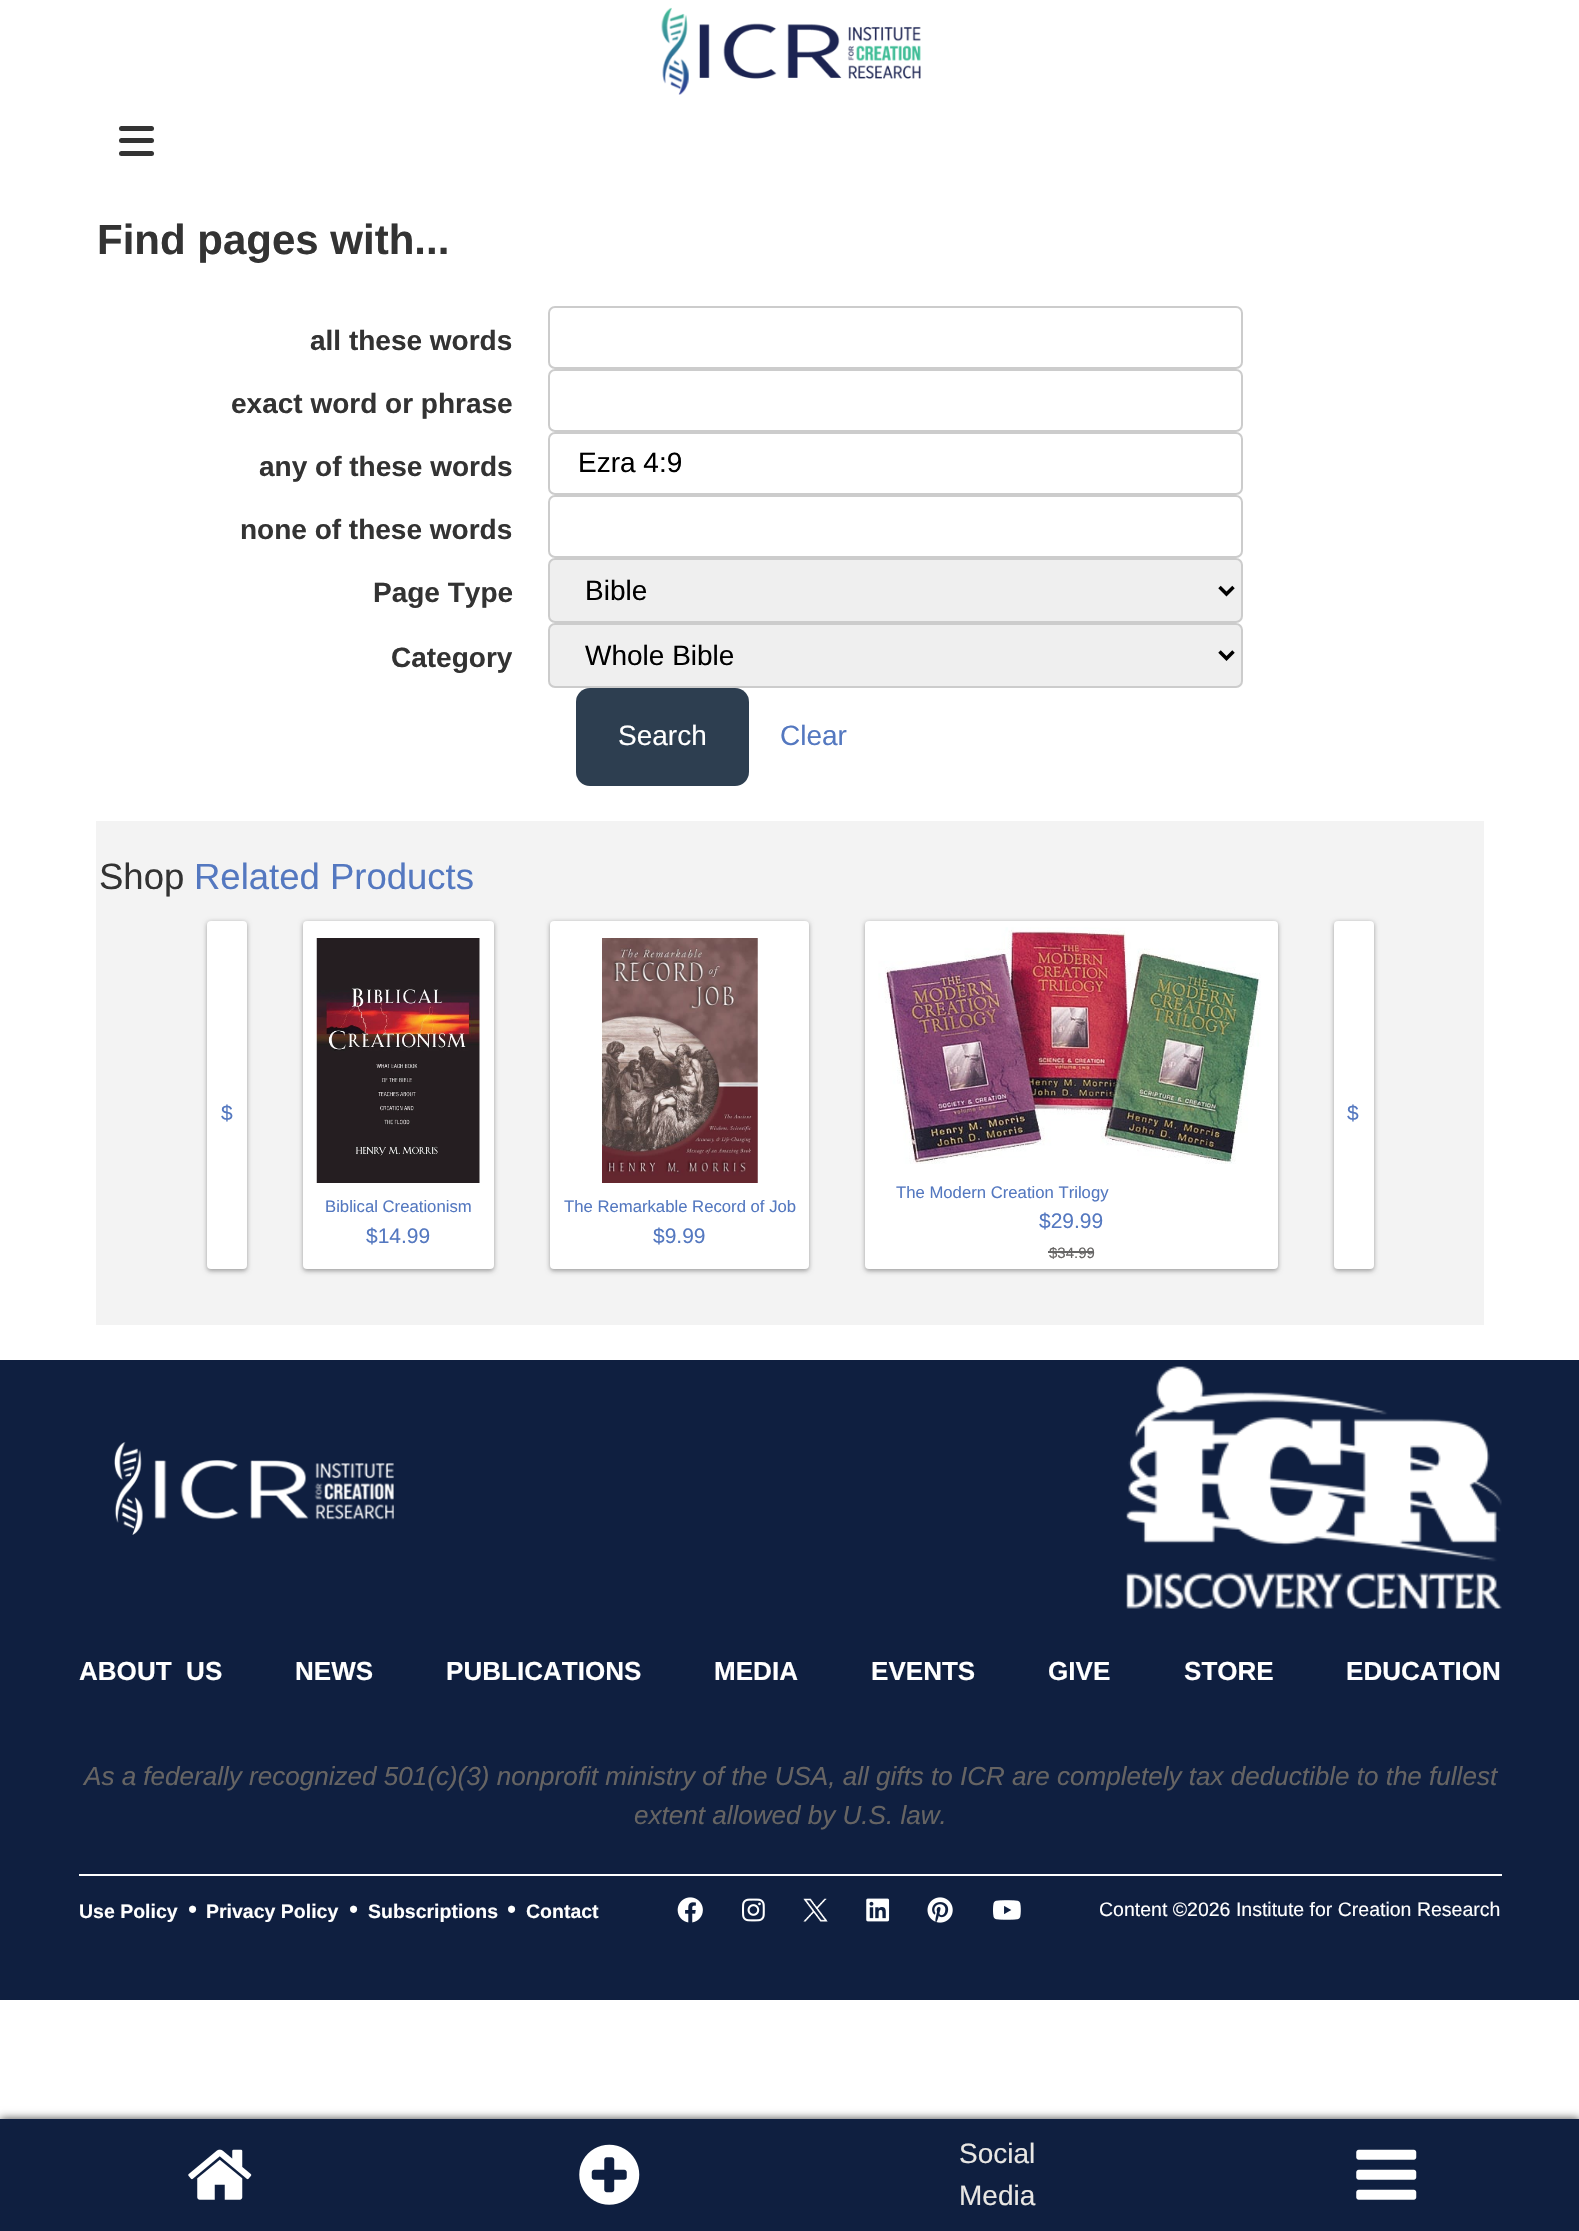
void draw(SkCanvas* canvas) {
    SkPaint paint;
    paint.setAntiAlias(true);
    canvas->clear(0xFFFFFFFF);
    canvas->drawImageRect(SkImages::DeferredFromEncodedData(SkData::MakeFromFileName("img1.png")), SkRect::MakeXYWH(661, 7, 260, 88), SkSamplingOptions());
    paint.setColor(0xFF333333);
    canvas->drawRoundRect(SkRect::MakeXYWH(119, 126, 35, 5), 2.5f, 2.5f, paint);
    canvas->drawRoundRect(SkRect::MakeXYWH(119, 138, 35, 5), 2.5f, 2.5f, paint);
    canvas->drawRoundRect(SkRect::MakeXYWH(119, 151, 35, 5), 2.5f, 2.5f, paint);
    SkFont font1(fontMgr->matchFamilyStyle("Liberation Sans", SkFontStyle::Bold()), 42);
    font1.setSubpixel(true);
    canvas->drawString("Find pages with...", 97, 254, font1, paint);
    SkFont font2(fontMgr->matchFamilyStyle("Liberation Sans", SkFontStyle::Bold()), 28);
    font2.setSubpixel(true);
    canvas->drawString("all these words", 310, 350, font2, paint);
    paint.setStyle(SkPaint::kStroke_Style);
    paint.setStrokeWidth(2);
    paint.setColor(0xFFCCCCCC);
    canvas->drawRoundRect(SkRect::MakeXYWH(549, 307, 693, 61), 6, 6, paint);
    paint.setStyle(SkPaint::kFill_Style);
    paint.setColor(0xFF333333);
    canvas->drawString("exact word or phrase", 231, 413, font2, paint);
    paint.setStyle(SkPaint::kStroke_Style);
    paint.setColor(0xFFCCCCCC);
    canvas->drawRoundRect(SkRect::MakeXYWH(549, 370, 693, 61), 6, 6, paint);
    paint.setStyle(SkPaint::kFill_Style);
    paint.setColor(0xFF333333);
    canvas->drawString("any of these words", 259, 476, font2, paint);
    paint.setStyle(SkPaint::kStroke_Style);
    paint.setColor(0xFFCCCCCC);
    canvas->drawRoundRect(SkRect::MakeXYWH(549, 433, 693, 61), 6, 6, paint);
    SkFont font3(fontMgr->matchFamilyStyle("Liberation Sans", SkFontStyle::Normal()), 28);
    font3.setSubpixel(true);
    paint.setStyle(SkPaint::kFill_Style);
    paint.setColor(0xFF000000);
    canvas->drawString("Ezra 4:9", 578, 472, font3, paint);
    paint.setColor(0xFF333333);
    canvas->drawString("none of these words", 240, 539, font2, paint);
    paint.setStyle(SkPaint::kStroke_Style);
    paint.setColor(0xFFCCCCCC);
    canvas->drawRoundRect(SkRect::MakeXYWH(549, 496, 693, 61), 6, 6, paint);
    paint.setStyle(SkPaint::kFill_Style);
    paint.setColor(0xFF333333);
    canvas->drawString("Page Type", 373, 602, font2, paint);
    paint.setColor(0xFFEFEFEF);
    canvas->drawRoundRect(SkRect::MakeXYWH(549, 559, 693, 63), 6, 6, paint);
    paint.setStyle(SkPaint::kStroke_Style);
    paint.setColor(0xFFCCCCCC);
    canvas->drawRoundRect(SkRect::MakeXYWH(549, 559, 693, 63), 6, 6, paint);
    paint.setStrokeWidth(3.5f);
    paint.setColor(0xFF000000);
    canvas->drawPath(SkPathBuilder().moveTo(1219.5f, 587).lineTo(1226.5f, 594).lineTo(1233.5f, 587).detach(), paint);
    paint.setStyle(SkPaint::kFill_Style);
    canvas->drawString("Bible", 585, 600, font3, paint);
    paint.setColor(0xFF333333);
    canvas->drawString("Category", 391, 667, font2, paint);
    paint.setColor(0xFFEFEFEF);
    canvas->drawRoundRect(SkRect::MakeXYWH(549, 624, 693, 63), 6, 6, paint);
    paint.setStyle(SkPaint::kStroke_Style);
    paint.setStrokeWidth(2);
    paint.setColor(0xFFCCCCCC);
    canvas->drawRoundRect(SkRect::MakeXYWH(549, 624, 693, 63), 6, 6, paint);
    paint.setStrokeWidth(3.5f);
    paint.setColor(0xFF000000);
    canvas->drawPath(SkPathBuilder().moveTo(1219.5f, 651.5f).lineTo(1226.5f, 658.5f).lineTo(1233.5f, 651.5f).detach(), paint);
    paint.setStyle(SkPaint::kFill_Style);
    canvas->drawString("Whole Bible", 585, 665, font3, paint);
    paint.setColor(0xFF2D3E50);
    canvas->drawRoundRect(SkRect::MakeXYWH(576, 688, 173, 98), 14, 14, paint);
    paint.setColor(0xFFFFFFFF);
    canvas->drawString("Search", 618, 745, font3, paint);
    paint.setColor(0xFF5478C0);
    canvas->drawString("Clear", 780, 745, font3, paint);
    paint.setColor(0xFFF3F3F3);
    canvas->drawRect(SkRect::MakeXYWH(96, 821, 1388, 504), paint);
    SkFont font4(fontMgr->matchFamilyStyle("Liberation Sans", SkFontStyle::Normal()), 36.5f);
    font4.setSubpixel(true);
    paint.setColor(0xFF333333);
    canvas->drawString("Shop", 99, 889, font4, paint);
    paint.setColor(0xFF5478C0);
    canvas->drawString("Related Products", 194, 889, font4, paint);
    paint.setColor(0x3D000000);
    paint.setMaskFilter(SkMaskFilter::MakeBlur(kNormal_SkBlurStyle, 2));
    canvas->drawRoundRect(SkRect::MakeXYWH(207, 922, 40, 349), 4, 4, paint);
    paint.setMaskFilter(nullptr);
    paint.setColor(0x1F000000);
    paint.setMaskFilter(SkMaskFilter::MakeBlur(kNormal_SkBlurStyle, 2.5f));
    canvas->drawRoundRect(SkRect::MakeXYWH(207, 922, 40, 349), 4, 4, paint);
    paint.setMaskFilter(nullptr);
    paint.setColor(0xFFFFFFFF);
    canvas->drawRoundRect(SkRect::MakeXYWH(207, 921, 40, 348), 4, 4, paint);
    SkFont font5(fontMgr->matchFamilyStyle("Liberation Sans", SkFontStyle::Normal()), 21);
    font5.setSubpixel(true);
    paint.setColor(0xFF5478C0);
    canvas->drawString("$", 221, 1120, font5, paint);
    paint.setColor(0x3D000000);
    paint.setMaskFilter(SkMaskFilter::MakeBlur(kNormal_SkBlurStyle, 2));
    canvas->drawRoundRect(SkRect::MakeXYWH(1334, 922, 40, 349), 4, 4, paint);
    paint.setMaskFilter(nullptr);
    paint.setColor(0x1F000000);
    paint.setMaskFilter(SkMaskFilter::MakeBlur(kNormal_SkBlurStyle, 2.5f));
    canvas->drawRoundRect(SkRect::MakeXYWH(1334, 922, 40, 349), 4, 4, paint);
    paint.setMaskFilter(nullptr);
    paint.setColor(0xFFFFFFFF);
    canvas->drawRoundRect(SkRect::MakeXYWH(1334, 921, 40, 348), 4, 4, paint);
    paint.setColor(0xFF5478C0);
    canvas->drawString("$", 1347, 1120, font5, paint);
    paint.setColor(0x3D000000);
    paint.setMaskFilter(SkMaskFilter::MakeBlur(kNormal_SkBlurStyle, 2));
    canvas->drawRoundRect(SkRect::MakeXYWH(303, 922, 191, 349), 4, 4, paint);
    paint.setMaskFilter(nullptr);
    paint.setColor(0x1F000000);
    paint.setMaskFilter(SkMaskFilter::MakeBlur(kNormal_SkBlurStyle, 2.5f));
    canvas->drawRoundRect(SkRect::MakeXYWH(303, 922, 191, 349), 4, 4, paint);
    paint.setMaskFilter(nullptr);
    paint.setColor(0xFFFFFFFF);
    canvas->drawRoundRect(SkRect::MakeXYWH(303, 921, 191, 348), 4, 4, paint);
    canvas->drawImageRect(SkImages::DeferredFromEncodedData(SkData::MakeFromFileName("img2.png")), SkRect::MakeXYWH(316, 938, 164, 245), SkSamplingOptions());
    SkFont font6(fontMgr->matchFamilyStyle("Liberation Sans", SkFontStyle::Normal()), 16.7f);
    font6.setSubpixel(true);
    paint.setColor(0xFF5478C0);
    canvas->drawString("Biblical Creationism", 325, 1212, font6, paint);
    canvas->drawString("$14.99", 366, 1243, font5, paint);
    paint.setColor(0x3D000000);
    paint.setMaskFilter(SkMaskFilter::MakeBlur(kNormal_SkBlurStyle, 2));
    canvas->drawRoundRect(SkRect::MakeXYWH(550, 922, 259, 349), 4, 4, paint);
    paint.setMaskFilter(nullptr);
    paint.setColor(0x1F000000);
    paint.setMaskFilter(SkMaskFilter::MakeBlur(kNormal_SkBlurStyle, 2.5f));
    canvas->drawRoundRect(SkRect::MakeXYWH(550, 922, 259, 349), 4, 4, paint);
    paint.setMaskFilter(nullptr);
    paint.setColor(0xFFFFFFFF);
    canvas->drawRoundRect(SkRect::MakeXYWH(550, 921, 259, 348), 4, 4, paint);
    canvas->drawImageRect(SkImages::DeferredFromEncodedData(SkData::MakeFromFileName("img3.png")), SkRect::MakeXYWH(602, 938, 156, 245), SkSamplingOptions());
    paint.setColor(0xFF5478C0);
    canvas->drawString("The Remarkable Record of Job", 564, 1212, font6, paint);
    canvas->drawString("$9.99", 653, 1243, font5, paint);
    paint.setColor(0x3D000000);
    paint.setMaskFilter(SkMaskFilter::MakeBlur(kNormal_SkBlurStyle, 2));
    canvas->drawRoundRect(SkRect::MakeXYWH(865, 922, 413, 349), 4, 4, paint);
    paint.setMaskFilter(nullptr);
    paint.setColor(0x1F000000);
    paint.setMaskFilter(SkMaskFilter::MakeBlur(kNormal_SkBlurStyle, 2.5f));
    canvas->drawRoundRect(SkRect::MakeXYWH(865, 922, 413, 349), 4, 4, paint);
    paint.setMaskFilter(nullptr);
    paint.setColor(0xFFFFFFFF);
    canvas->drawRoundRect(SkRect::MakeXYWH(865, 921, 413, 348), 4, 4, paint);
    canvas->drawImageRect(SkImages::DeferredFromEncodedData(SkData::MakeFromFileName("img4.png")), SkRect::MakeXYWH(878, 927, 383, 237), SkSamplingOptions());
    paint.setColor(0xFF5478C0);
    canvas->drawString("The Modern Creation Trilogy", 896, 1198, font6, paint);
    canvas->drawString("$29.99", 1039, 1228, font5, paint);
    SkFont font7(fontMgr->matchFamilyStyle("Liberation Sans", SkFontStyle::Normal()), 15);
    font7.setSubpixel(true);
    paint.setColor(0xFF666463);
    canvas->drawString("$34.99", 1049, 1258, font7, paint);
    paint.setColor(0xFF666666);
    canvas->drawRect(SkRect::MakeXYWH(1048, 1251, 46, 2), paint);
    paint.setColor(0xFF0F1F40);
    canvas->drawRect(SkRect::MakeXYWH(0, 1360, 1579, 640), paint);
    canvas->drawImageRect(SkImages::DeferredFromEncodedData(SkData::MakeFromFileName("img5.png")), SkRect::MakeXYWH(114, 1442, 280, 93), SkSamplingOptions());
    canvas->drawImageRect(SkImages::DeferredFromEncodedData(SkData::MakeFromFileName("img6.png")), SkRect::MakeXYWH(1126, 1366, 376, 243), SkSamplingOptions());
    SkFont font8(fontMgr->matchFamilyStyle("Liberation Sans", SkFontStyle::Bold()), 26.05f);
    font8.setSubpixel(true);
    paint.setColor(0xFFFFFFFF);
    canvas->drawString("ABOUT  US", 79, 1680, font8, paint);
    canvas->drawString("NEWS", 295, 1680, font8, paint);
    canvas->drawString("PUBLICATIONS", 446, 1680, font8, paint);
    canvas->drawString("MEDIA", 714, 1680, font8, paint);
    canvas->drawString("EVENTS", 871, 1680, font8, paint);
    canvas->drawString("GIVE", 1048, 1680, font8, paint);
    canvas->drawString("STORE", 1184, 1680, font8, paint);
    canvas->drawString("EDUCATION", 1346, 1680, font8, paint);
    SkFont font9(fontMgr->matchFamilyStyle("Liberation Sans", SkFontStyle::Italic()), 26.05f);
    font9.setSubpixel(true);
    paint.setColor(0xFF666463);
    canvas->drawString("As a federally recognized 501(c)(3) nonprofit ministry of the USA, all gifts to ICR are completely tax deductible to the fullest", 84, 1785, font9, paint);
    canvas->drawString("extent allowed by U.S. law.", 634, 1824, font9, paint);
    paint.setColor(0xFFFFFFFF);
    canvas->drawRect(SkRect::MakeXYWH(79, 1874, 1423, 2), paint);
    SkFont font10(fontMgr->matchFamilyStyle("Liberation Sans", SkFontStyle::Bold()), 19.5f);
    font10.setSubpixel(true);
    canvas->drawString("Use Policy", 79, 1918, font10, paint);
    SkFont font11(fontMgr->matchFamilyStyle("Liberation Sans", SkFontStyle::Normal()), 26.05f);
    font11.setSubpixel(true);
    canvas->drawString("•", 188, 1918, font11, paint);
    canvas->drawString("Privacy Policy", 206, 1918, font10, paint);
    canvas->drawString("•", 349, 1918, font11, paint);
    canvas->drawString("Subscriptions", 368, 1918, font10, paint);
    canvas->drawString("•", 507, 1918, font11, paint);
    canvas->drawString("Contact", 526, 1918, font10, paint);
    canvas->drawImageRect(SkImages::DeferredFromEncodedData(SkData::MakeFromFileName("img7.png")), SkRect::MakeXYWH(677, 1897, 26, 26), SkSamplingOptions());
    canvas->drawImageRect(SkImages::DeferredFromEncodedData(SkData::MakeFromFileName("img8.png")), SkRect::MakeXYWH(742, 1898, 23, 24), SkSamplingOptions());
    canvas->drawImageRect(SkImages::DeferredFromEncodedData(SkData::MakeFromFileName("img9.png")), SkRect::MakeXYWH(803, 1898, 25, 24), SkSamplingOptions());
    canvas->drawImageRect(SkImages::DeferredFromEncodedData(SkData::MakeFromFileName("img10.png")), SkRect::MakeXYWH(866, 1898, 24, 24), SkSamplingOptions());
    canvas->drawImageRect(SkImages::DeferredFromEncodedData(SkData::MakeFromFileName("img11.png")), SkRect::MakeXYWH(927, 1897, 26, 26), SkSamplingOptions());
    canvas->drawImageRect(SkImages::DeferredFromEncodedData(SkData::MakeFromFileName("img12.png")), SkRect::MakeXYWH(993, 1900, 28, 20), SkSamplingOptions());
    SkFont font12(fontMgr->matchFamilyStyle("Liberation Sans", SkFontStyle::Normal()), 19.5f);
    font12.setSubpixel(true);
    canvas->drawString("Content ©2026 Institute for Creation Research", 1099, 1916, font12, paint);
    paint.setColor(0xBF000000);
    paint.setMaskFilter(SkMaskFilter::MakeBlur(kNormal_SkBlurStyle, 4.5f));
    canvas->drawRect(SkRect::MakeXYWH(0, 2119, 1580, 112), paint);
    paint.setMaskFilter(nullptr);
    paint.setColor(0xFF0F1F40);
    canvas->drawRect(SkRect::MakeXYWH(0, 2119, 1579, 112), paint);
    canvas->drawImageRect(SkImages::DeferredFromEncodedData(SkData::MakeFromFileName("img13.png")), SkRect::MakeXYWH(188, 2149, 64, 51), SkSamplingOptions());
    canvas->drawImageRect(SkImages::DeferredFromEncodedData(SkData::MakeFromFileName("img14.png")), SkRect::MakeXYWH(579, 2144, 61, 61), SkSamplingOptions());
    paint.setColor(0xFFE8E6E3);
    canvas->drawString("Social", 959, 2163, font3, paint);
    canvas->drawString("Media", 959, 2205, font3, paint);
    canvas->drawImageRect(SkImages::DeferredFromEncodedData(SkData::MakeFromFileName("img15.png")), SkRect::MakeXYWH(1356, 2149, 61, 51), SkSamplingOptions());
}
